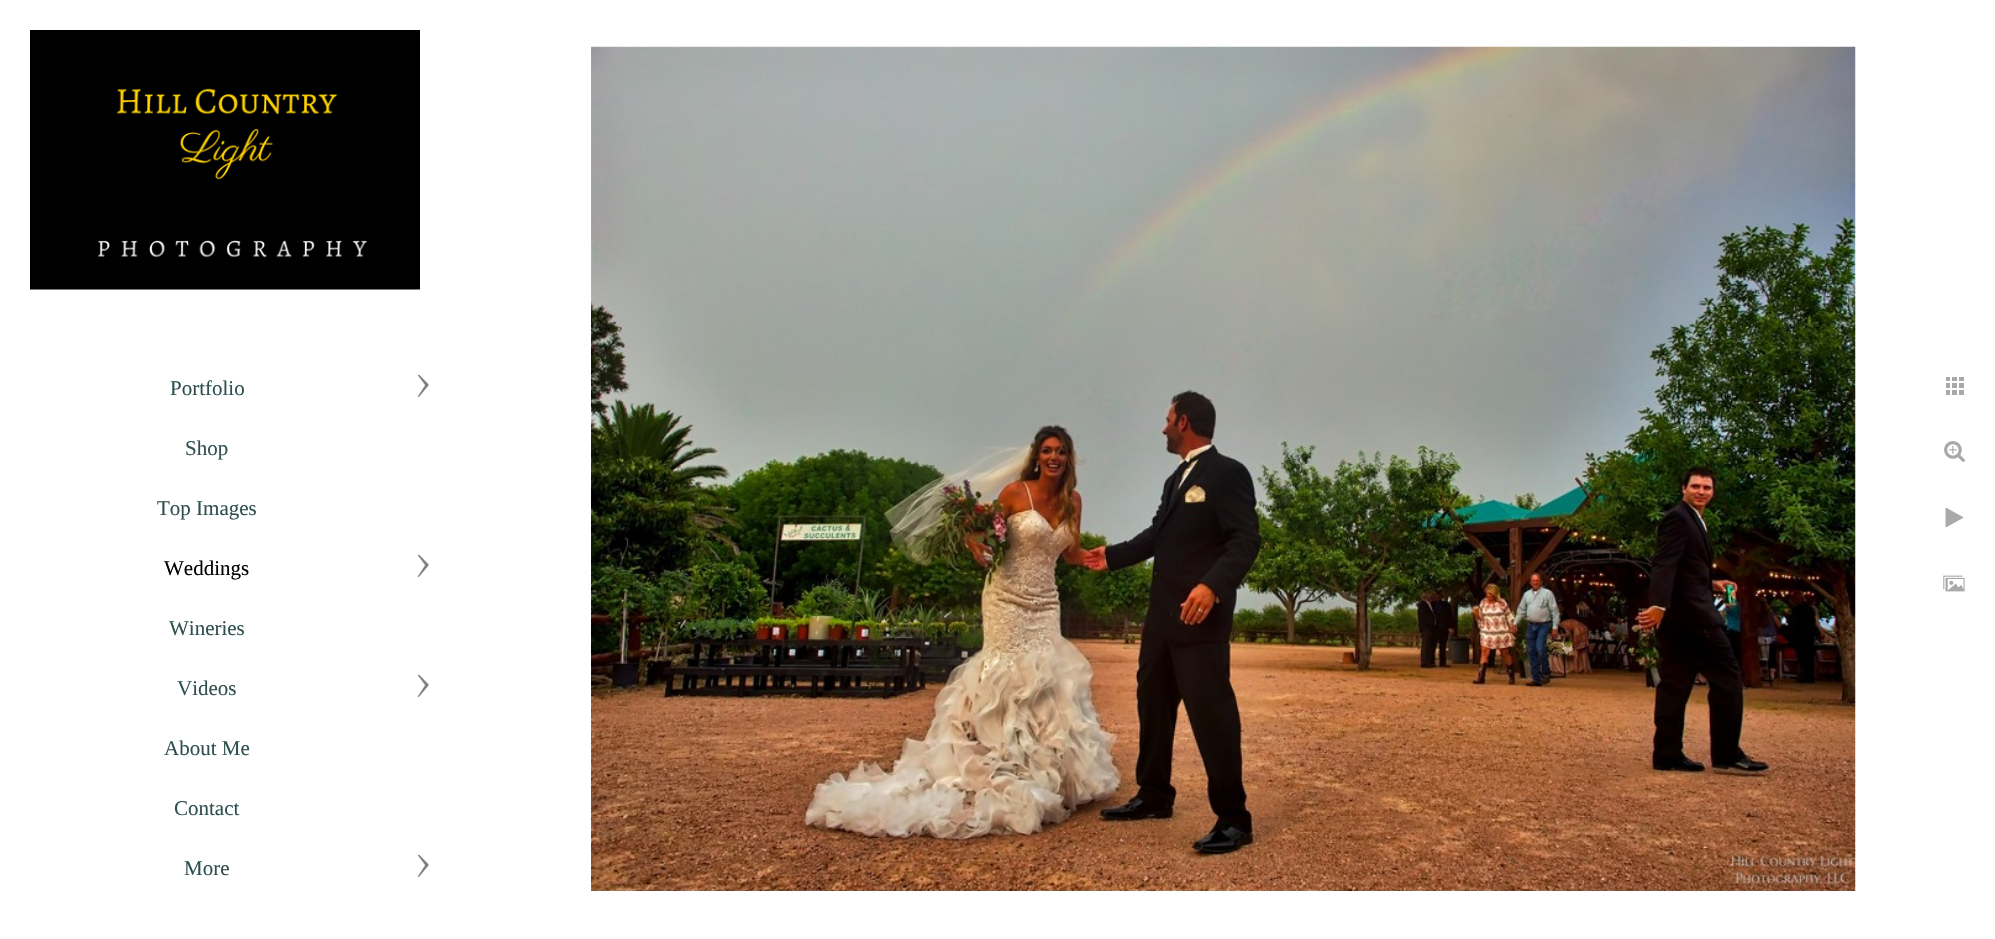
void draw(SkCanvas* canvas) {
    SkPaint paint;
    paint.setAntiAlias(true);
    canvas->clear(0xFFFFFFFF);
    canvas->drawImageRect(SkImages::DeferredFromEncodedData(SkData::MakeFromFileName("img1.png")), SkRect::MakeXYWH(30, 30, 390, 260), SkSamplingOptions());
    SkFont font1(fontMgr->matchFamilyStyle("Liberation Serif", SkFontStyle::Normal()), 21);
    font1.setSubpixel(true);
    paint.setColor(0xFF2F4F4F);
    canvas->drawString("Portfolio", 170, 395, font1, paint);
    canvas->drawImageRect(SkImages::DeferredFromEncodedData(SkData::MakeFromFileName("img2.png")), SkRect::MakeXYWH(417, 374, 12, 23), SkSamplingOptions());
    canvas->drawString("Shop", 185, 455, font1, paint);
    canvas->drawString("Top Images", 157, 515, font1, paint);
    paint.setColor(0xFF000000);
    canvas->drawString("Weddings", 164, 575, font1, paint);
    canvas->drawImageRect(SkImages::DeferredFromEncodedData(SkData::MakeFromFileName("img2.png")), SkRect::MakeXYWH(417, 554, 12, 23), SkSamplingOptions());
    paint.setColor(0xFF2F4F4F);
    canvas->drawString("Wineries", 169, 635, font1, paint);
    canvas->drawString("Videos", 177, 695, font1, paint);
    canvas->drawImageRect(SkImages::DeferredFromEncodedData(SkData::MakeFromFileName("img2.png")), SkRect::MakeXYWH(417, 674, 12, 23), SkSamplingOptions());
    canvas->drawString("About Me", 164, 755, font1, paint);
    canvas->drawString("Contact", 174, 815, font1, paint);
    canvas->drawString("More", 184, 875, font1, paint);
    canvas->drawImageRect(SkImages::DeferredFromEncodedData(SkData::MakeFromFileName("img2.png")), SkRect::MakeXYWH(417, 854, 12, 23), SkSamplingOptions());
    canvas->drawImageRect(SkImages::DeferredFromEncodedData(SkData::MakeFromFileName("img3.png")), SkRect::MakeXYWH(591, 46, 1265, 845), SkSamplingOptions());
    canvas->drawImageRect(SkImages::DeferredFromEncodedData(SkData::MakeFromFileName("img4.png")), SkRect::MakeXYWH(1946, 377, 18, 18), SkSamplingOptions());
    canvas->drawImageRect(SkImages::DeferredFromEncodedData(SkData::MakeFromFileName("img5.png")), SkRect::MakeXYWH(1944, 441, 21, 21), SkSamplingOptions());
    canvas->drawImageRect(SkImages::DeferredFromEncodedData(SkData::MakeFromFileName("img6.png")), SkRect::MakeXYWH(1945, 507, 19, 21), SkSamplingOptions());
    canvas->drawImageRect(SkImages::DeferredFromEncodedData(SkData::MakeFromFileName("img7.png")), SkRect::MakeXYWH(1943, 575, 22, 17), SkSamplingOptions());
}
